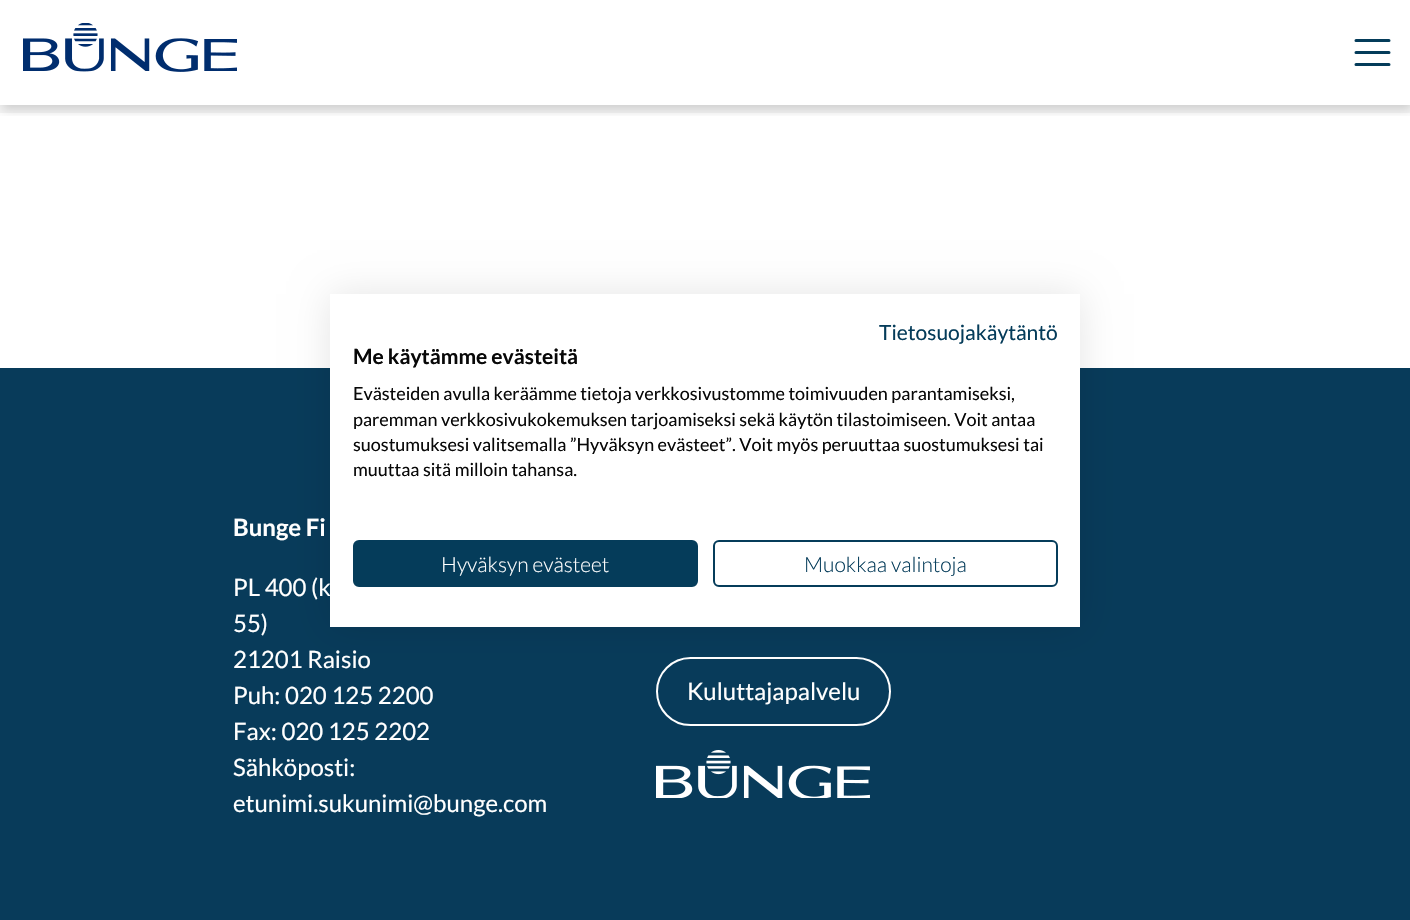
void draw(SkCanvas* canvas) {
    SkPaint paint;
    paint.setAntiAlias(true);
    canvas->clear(0xFFFFFFFF);
    paint.setColor(0xFFF6F6F6);
    canvas->drawRect(SkRect::MakeXYWH(0, 105, 1410, 8), paint);
    canvas->save();
    canvas->clipRect(SkRect::MakeXYWH(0, 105, 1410, 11));
    paint.setColor(0x29000000);
    paint.setMaskFilter(SkMaskFilter::MakeBlur(kNormal_SkBlurStyle, 5));
    canvas->drawRect(SkRect::MakeXYWH(2, 5, 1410, 105), paint);
    paint.setMaskFilter(nullptr);
    canvas->restore();
    canvas->drawImageRect(SkImages::DeferredFromEncodedData(SkData::MakeFromFileName("img1.png")), SkRect::MakeXYWH(23, 23, 214, 49), SkSamplingOptions());
    paint.setStyle(SkPaint::kStroke_Style);
    paint.setStrokeWidth(3);
    paint.setStrokeCap(SkPaint::kRound_Cap);
    paint.setColor(0xFF043C5A);
    canvas->drawPath(SkPathBuilder().moveTo(1356, 40.5f).lineTo(1389, 40.5f).moveTo(1356, 52.5f).lineTo(1389, 52.5f).moveTo(1356, 64.5f).lineTo(1389, 64.5f).detach(), paint);
    paint.setStyle(SkPaint::kFill_Style);
    paint.setColor(0xFF083B5A);
    canvas->drawRect(SkRect::MakeXYWH(0, 368, 1410, 552), paint);
    paint.setStyle(SkPaint::kStroke_Style);
    paint.setStrokeWidth(2);
    paint.setStrokeCap(SkPaint::kButt_Cap);
    paint.setColor(0xFFFFFFFF);
    canvas->drawRoundRect(SkRect::MakeXYWH(657, 658, 233, 67), 33.5f, 33.5f, paint);
    paint.setStyle(SkPaint::kFill_Style);
    paint.setColor(0x1A000000);
    paint.setMaskFilter(SkMaskFilter::MakeBlur(kNormal_SkBlurStyle, 18));
    canvas->drawRect(SkRect::MakeXYWH(330, 294, 750, 333), paint);
    paint.setMaskFilter(nullptr);
    paint.setColor(0xFFFFFFFF);
    canvas->drawRect(SkRect::MakeXYWH(330, 294, 750, 333), paint);
    SkFont font1(fontMgr->matchFamilyStyle("Lato", SkFontStyle::Normal()), 21);
    font1.setSubpixel(true);
    paint.setColor(0xFF053C5A);
    canvas->drawString("Tietosuojakäytäntö", 879, 340, font1, paint);
    SkFont font2(fontMgr->matchFamilyStyle("Lato", SkFontStyle::Bold()), 21);
    font2.setSubpixel(true);
    paint.setColor(0xFF080808);
    canvas->drawString("Me käytämme evästeitä", 353, 364, font2, paint);
    SkFont font3(fontMgr->matchFamilyStyle("Lato", SkFontStyle::Normal()), 18);
    font3.setSubpixel(true);
    canvas->drawString("Evästeiden avulla keräämme tietoja verkkosivustomme toimivuuden parantamiseksi,", 353, 400, font3, paint);
    canvas->drawString("paremman verkkosivukokemuksen tarjoamiseksi sekä käytön tilastoimiseen. Voit antaa", 353, 426, font3, paint);
    canvas->drawString("suostumuksesi valitsemalla ”Hyväksyn evästeet”. Voit myös peruuttaa suostumuksesi tai", 353, 451, font3, paint);
    canvas->drawString("muuttaa sitä milloin tahansa.", 353, 476, font3, paint);
    paint.setColor(0xFF053C5A);
    canvas->drawRoundRect(SkRect::MakeXYWH(354, 541, 343, 45), 5, 5, paint);
    paint.setStyle(SkPaint::kStroke_Style);
    canvas->drawRoundRect(SkRect::MakeXYWH(354, 541, 343, 45), 5, 5, paint);
    SkFont font4(fontMgr->matchFamilyStyle("Lato", SkFontStyle(300, SkFontStyle::kNormal_Width, SkFontStyle::kUpright_Slant)), 21);
    font4.setSubpixel(true);
    paint.setStyle(SkPaint::kFill_Style);
    paint.setColor(0xFFFFFFFF);
    canvas->drawString("Hyväksyn evästeet", 441, 572, font4, paint);
    paint.setStyle(SkPaint::kStroke_Style);
    paint.setColor(0xFF053C5A);
    canvas->drawRoundRect(SkRect::MakeXYWH(714, 541, 343, 45), 5, 5, paint);
    paint.setStyle(SkPaint::kFill_Style);
    canvas->drawString("Muokkaa valintoja", 804, 572, font4, paint);
    SkFont font5(fontMgr->matchFamilyStyle("Lato", SkFontStyle::Bold()), 24);
    font5.setSubpixel(true);
    paint.setColor(0xFFFFFFFF);
    canvas->drawString("Bunge Fi", 233, 536, font5, paint);
    SkFont font6(fontMgr->matchFamilyStyle("Lato", SkFontStyle::Normal()), 24);
    font6.setSubpixel(true);
    canvas->drawString("PL 400 (k", 233, 596, font6, paint);
    canvas->drawString("55)", 233, 632, font6, paint);
    canvas->drawString("21201 Raisio", 233, 668, font6, paint);
    canvas->drawString("Puh: 020 125 2200", 233, 704, font6, paint);
    canvas->drawString("Fax: 020 125 2202", 233, 740, font6, paint);
    canvas->drawString("Sähköposti:", 233, 776, font6, paint);
    canvas->drawString("etunimi.sukunimi@bunge.com", 233, 812, font6, paint);
    canvas->drawString("Kuluttajapalvelu", 687, 700, font6, paint);
    canvas->drawImageRect(SkImages::DeferredFromEncodedData(SkData::MakeFromFileName("img2.png")), SkRect::MakeXYWH(656, 750, 214, 48), SkSamplingOptions());
}
